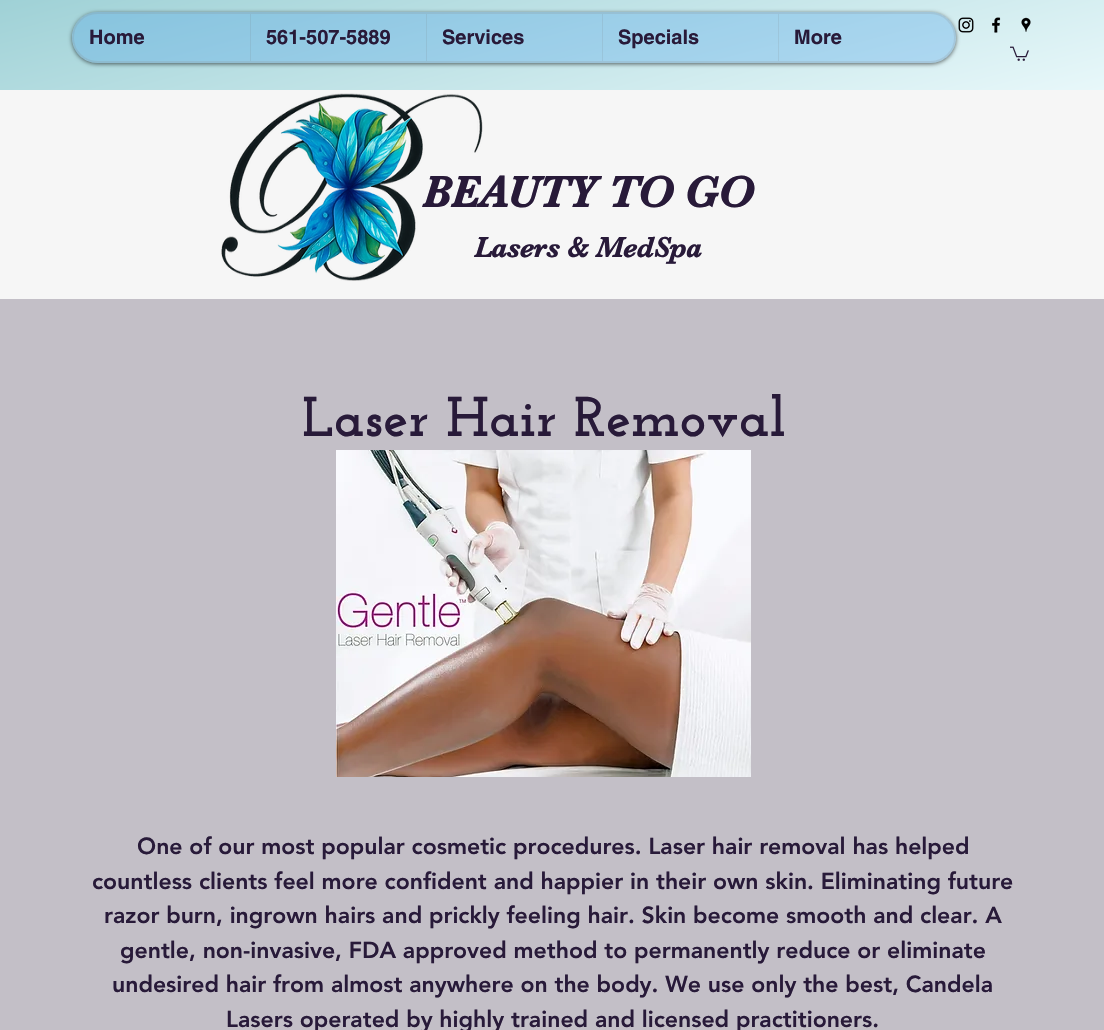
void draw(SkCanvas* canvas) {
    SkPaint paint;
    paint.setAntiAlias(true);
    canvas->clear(0xFFF6F6F6);
    {
        const SkColor colors[] = {0xFF9FD1D6, 0xFFE8F8FA};
        const float stops[] = {0, 1};
        const SkPoint ends[] = {{504, -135}, {600, 225}};
        paint.setShader(SkGradientShader::MakeLinear(ends, colors, stops, 2, SkTileMode::kClamp));
        paint.setAlpha(255);
    }
    canvas->drawRect(SkRect::MakeXYWH(0, 0, 1104, 90), paint);
    canvas->save();
    canvas->clipPath(SkPathBuilder(SkPathFillType::kEvenOdd).moveTo(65, 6).lineTo(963, 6).lineTo(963, 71).lineTo(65, 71).close().moveTo(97.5f, 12).lineTo(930.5f, 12).cubicTo(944.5f, 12, 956, 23.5f, 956, 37.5f).cubicTo(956, 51.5f, 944.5f, 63, 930.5f, 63).lineTo(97.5f, 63).cubicTo(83.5f, 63, 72, 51.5f, 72, 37.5f).cubicTo(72, 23.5f, 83.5f, 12, 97.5f, 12).close().detach(), true);
    paint.setShader(nullptr);
    paint.setColor(0x99000000);
    paint.setMaskFilter(SkMaskFilter::MakeBlur(kNormal_SkBlurStyle, 2));
    canvas->drawRoundRect(SkRect::MakeXYWH(72, 13, 884, 51), 25.5f, 25.5f, paint);
    paint.setMaskFilter(nullptr);
    canvas->restore();
    canvas->drawImageRect(SkImages::DeferredFromEncodedData(SkData::MakeFromFileName("img1.png")), SkRect::MakeXYWH(958, 17, 16, 16), SkSamplingOptions());
    canvas->drawImageRect(SkImages::DeferredFromEncodedData(SkData::MakeFromFileName("img2.png")), SkRect::MakeXYWH(992, 17, 9, 16), SkSamplingOptions());
    canvas->drawImageRect(SkImages::DeferredFromEncodedData(SkData::MakeFromFileName("img3.png")), SkRect::MakeXYWH(1021, 17, 10, 15), SkSamplingOptions());
    paint.setColor(0x4A3D9BE9);
    canvas->drawRoundRect(SkRect::MakeXYWH(72, 12, 884, 51), 25.5f, 25.5f, paint);
    paint.setStyle(SkPaint::kStroke_Style);
    paint.setStrokeWidth(2);
    paint.setColor(0x30858585);
    canvas->drawRoundRect(SkRect::MakeXYWH(73, 13, 882, 49), 24.5f, 24.5f, paint);
    SkFont font1(fontMgr->matchFamilyStyle("helvetica", SkFontStyle::Bold()), 20);
    font1.setSubpixel(true);
    paint.setStyle(SkPaint::kFill_Style);
    paint.setColor(0xFF281A39);
    canvas->drawString("Home", 89, 44, font1, paint);
    paint.setColor(0x21696969);
    canvas->drawRect(SkRect::MakeXYWH(250, 14, 1, 47), paint);
    paint.setColor(0xFF281A39);
    canvas->drawString("561-507-5889", 266, 44, font1, paint);
    paint.setColor(0x21696969);
    canvas->drawRect(SkRect::MakeXYWH(426, 14, 1, 47), paint);
    paint.setColor(0xFF281A39);
    canvas->drawString("Services", 442, 44, font1, paint);
    paint.setColor(0x21696969);
    canvas->drawRect(SkRect::MakeXYWH(602, 14, 1, 47), paint);
    paint.setColor(0xFF281A39);
    canvas->drawString("Specials", 618, 44, font1, paint);
    paint.setColor(0x21696969);
    canvas->drawRect(SkRect::MakeXYWH(778, 14, 1, 47), paint);
    paint.setColor(0xFF281A39);
    canvas->drawString("More", 794, 44, font1, paint);
    canvas->drawImageRect(SkImages::DeferredFromEncodedData(SkData::MakeFromFileName("img4.png")), SkRect::MakeXYWH(1010, 46, 19, 15), SkSamplingOptions());
    canvas->drawImageRect(SkImages::DeferredFromEncodedData(SkData::MakeFromFileName("img5.png")), SkRect::MakeXYWH(221, 93, 262, 188), SkSamplingOptions());
    SkFont font2(fontMgr->matchFamilyStyle("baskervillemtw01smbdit", SkFontStyle::Bold()), 45);
    font2.setSubpixel(true);
    canvas->drawString("BEAUTY TO GO", 422, 207, font2, paint);
    SkFont font3(fontMgr->matchFamilyStyle("baskervillemtw01smbdit", SkFontStyle::Bold()), 29);
    font3.setSubpixel(true);
    canvas->drawString("Lasers & MedSpa", 474, 257, font3, paint);
    paint.setColor(0xFFC3BFC7);
    canvas->drawRect(SkRect::MakeXYWH(0, 299, 1104, 731), paint);
    SkFont font4(fontMgr->matchFamilyStyle("Josefin Slab", SkFontStyle::Bold()), 56);
    font4.setSubpixel(true);
    paint.setColor(0xFF281A39);
    canvas->drawString("Laser Hair Removal", 302, 436, font4, paint);
    canvas->drawImageRect(SkImages::DeferredFromEncodedData(SkData::MakeFromFileName("img6.png")), SkRect::MakeXYWH(336, 450, 415, 327), SkSamplingOptions());
    SkFont font5(fontMgr->matchFamilyStyle("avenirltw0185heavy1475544", SkFontStyle(900, SkFontStyle::kNormal_Width, SkFontStyle::kUpright_Slant)), 23);
    font5.setSubpixel(true);
    canvas->drawString("One of our most popular cosmetic procedures. Laser hair removal has helped", 137, 854, font5, paint);
    canvas->drawString("countless clients feel more confident and happier in their own skin. Eliminating future", 92, 889, font5, paint);
    canvas->drawString("razor burn, ingrown hairs and prickly feeling hair. Skin become smooth and clear. A", 104, 923, font5, paint);
    canvas->drawString("gentle, non-invasive, FDA approved method to permanently reduce or eliminate", 120, 958, font5, paint);
    canvas->drawString("undesired hair from almost anywhere on the body. We use only the best, Candela", 112, 992, font5, paint);
    canvas->drawString("Lasers operated by highly trained and licensed practitioners.", 226, 1027, font5, paint);
}
